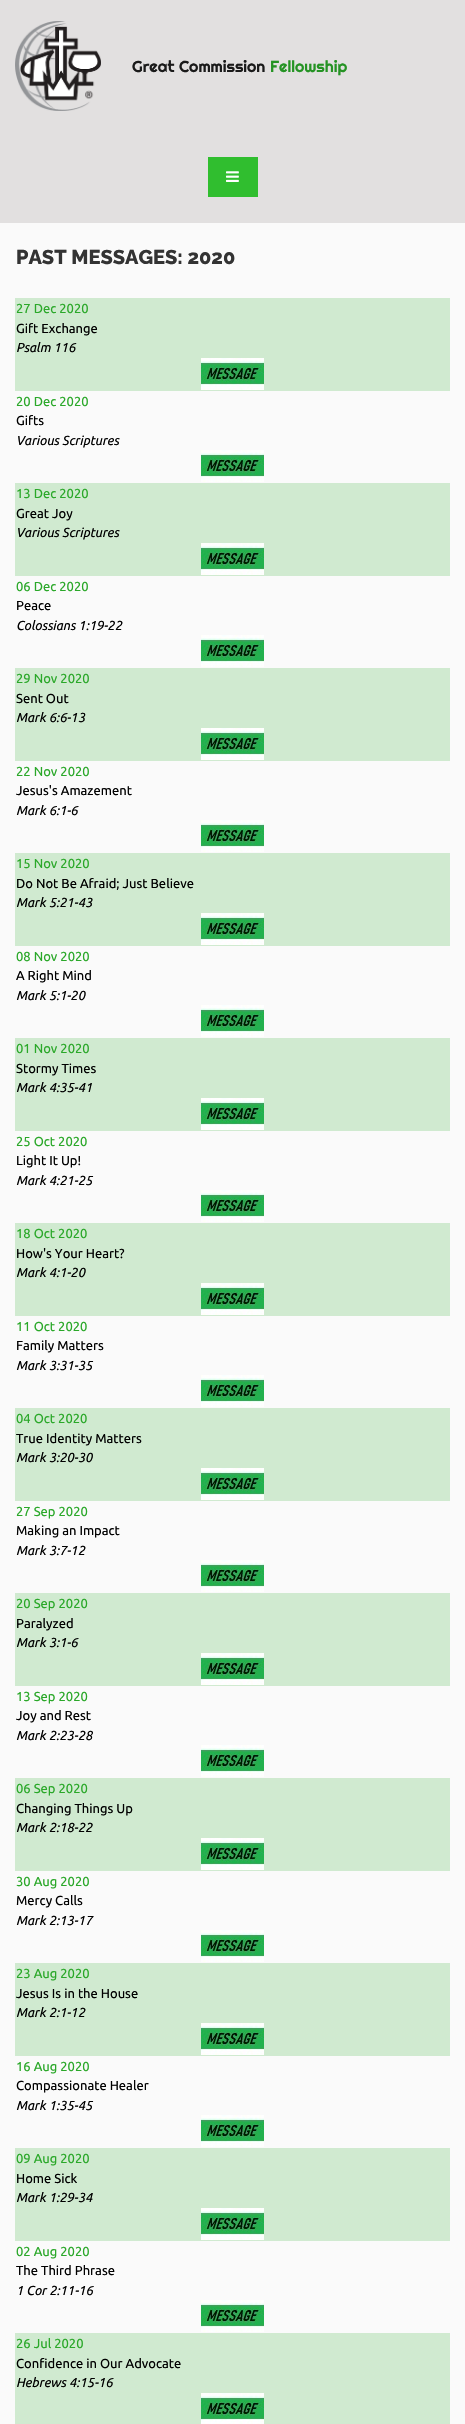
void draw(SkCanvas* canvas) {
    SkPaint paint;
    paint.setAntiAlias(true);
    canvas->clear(0xFFFAFAFA);
    paint.setColor(0xFFE2E0E0);
    canvas->drawRect(SkRect::MakeXYWH(0, 0, 465, 223), paint);
    canvas->drawImageRect(SkImages::DeferredFromEncodedData(SkData::MakeFromFileName("img1.png")), SkRect::MakeXYWH(15, 21, 86, 90), SkSamplingOptions());
    SkFont font1(fontMgr->matchFamilyStyle("Righteous", SkFontStyle::Normal()), 16);
    font1.setSubpixel(true);
    paint.setColor(0xFF1A1A1A);
    canvas->drawString("Great Commission", 132, 72, font1, paint);
    paint.setColor(0xFF259324);
    canvas->drawString("Fellowship", 270, 72, font1, paint);
    paint.setColor(0xFF30BE2F);
    canvas->drawRect(SkRect::MakeXYWH(208, 157, 50, 40), paint);
    canvas->drawImageRect(SkImages::DeferredFromEncodedData(SkData::MakeFromFileName("img2.png")), SkRect::MakeXYWH(226, 171, 13, 11), SkSamplingOptions());
    SkFont font2(fontMgr->matchFamilyStyle("Raleway", SkFontStyle(800, SkFontStyle::kNormal_Width, SkFontStyle::kUpright_Slant)), 20);
    font2.setSubpixel(true);
    paint.setColor(0xFF333333);
    canvas->drawString("PAST MESSAGES: 2020", 16, 264, font2, paint);
    paint.setColor(0xFFD0EAD0);
    canvas->drawRect(SkRect::MakeXYWH(15, 298, 435, 93), paint);
    SkFont font3(fontMgr->matchFamilyStyle("Ubuntu", SkFontStyle::Normal()), 13);
    font3.setSubpixel(true);
    paint.setColor(0xFF2AA829);
    canvas->drawString("27 Dec 2020", 16, 313, font3, paint);
    paint.setColor(0xFF000000);
    canvas->drawString("Gift Exchange", 16, 333, font3, paint);
    SkFont font4(fontMgr->matchFamilyStyle("Ubuntu", SkFontStyle::Italic()), 13);
    font4.setSubpixel(true);
    canvas->drawString("Psalm 116", 16, 352, font4, paint);
    canvas->drawImageRect(SkImages::DeferredFromEncodedData(SkData::MakeFromFileName("img3.png")), SkRect::MakeXYWH(201, 358, 63, 32), SkSamplingOptions());
    paint.setColor(0xFF2AA829);
    canvas->drawString("20 Dec 2020", 16, 406, font3, paint);
    paint.setColor(0xFF000000);
    canvas->drawString("Gifts", 16, 425, font3, paint);
    canvas->drawString("Various Scriptures", 16, 445, font4, paint);
    canvas->drawImageRect(SkImages::DeferredFromEncodedData(SkData::MakeFromFileName("img3.png")), SkRect::MakeXYWH(201, 450, 63, 32), SkSamplingOptions());
    paint.setColor(0xFFD0EAD0);
    canvas->drawRect(SkRect::MakeXYWH(15, 483, 435, 93), paint);
    paint.setColor(0xFF2AA829);
    canvas->drawString("13 Dec 2020", 16, 498, font3, paint);
    paint.setColor(0xFF000000);
    canvas->drawString("Great Joy", 16, 518, font3, paint);
    canvas->drawString("Various Scriptures", 16, 537, font4, paint);
    canvas->drawImageRect(SkImages::DeferredFromEncodedData(SkData::MakeFromFileName("img3.png")), SkRect::MakeXYWH(201, 543, 63, 32), SkSamplingOptions());
    paint.setColor(0xFF2AA829);
    canvas->drawString("06 Dec 2020", 16, 591, font3, paint);
    paint.setColor(0xFF000000);
    canvas->drawString("Peace", 16, 610, font3, paint);
    canvas->drawString("Colossians 1:19-22", 16, 630, font4, paint);
    canvas->drawImageRect(SkImages::DeferredFromEncodedData(SkData::MakeFromFileName("img3.png")), SkRect::MakeXYWH(201, 635, 63, 32), SkSamplingOptions());
    paint.setColor(0xFFD0EAD0);
    canvas->drawRect(SkRect::MakeXYWH(15, 668, 435, 93), paint);
    paint.setColor(0xFF2AA829);
    canvas->drawString("29 Nov 2020", 16, 683, font3, paint);
    paint.setColor(0xFF000000);
    canvas->drawString("Sent Out", 16, 703, font3, paint);
    canvas->drawString("Mark 6:6-13", 16, 722, font4, paint);
    canvas->drawImageRect(SkImages::DeferredFromEncodedData(SkData::MakeFromFileName("img3.png")), SkRect::MakeXYWH(201, 728, 63, 32), SkSamplingOptions());
    paint.setColor(0xFF2AA829);
    canvas->drawString("22 Nov 2020", 16, 776, font3, paint);
    paint.setColor(0xFF000000);
    canvas->drawString("Jesus's Amazement", 16, 795, font3, paint);
    canvas->drawString("Mark 6:1-6", 16, 815, font4, paint);
    canvas->drawImageRect(SkImages::DeferredFromEncodedData(SkData::MakeFromFileName("img3.png")), SkRect::MakeXYWH(201, 820, 63, 32), SkSamplingOptions());
    paint.setColor(0xFFD0EAD0);
    canvas->drawRect(SkRect::MakeXYWH(15, 853, 435, 93), paint);
    paint.setColor(0xFF2AA829);
    canvas->drawString("15 Nov 2020", 16, 868, font3, paint);
    paint.setColor(0xFF000000);
    canvas->drawString("Do Not Be Afraid; Just Believe", 16, 888, font3, paint);
    canvas->drawString("Mark 5:21-43", 16, 907, font4, paint);
    canvas->drawImageRect(SkImages::DeferredFromEncodedData(SkData::MakeFromFileName("img3.png")), SkRect::MakeXYWH(201, 913, 63, 32), SkSamplingOptions());
    paint.setColor(0xFF2AA829);
    canvas->drawString("08 Nov 2020", 16, 961, font3, paint);
    paint.setColor(0xFF000000);
    canvas->drawString("A Right Mind", 16, 980, font3, paint);
    canvas->drawString("Mark 5:1-20", 16, 1000, font4, paint);
    canvas->drawImageRect(SkImages::DeferredFromEncodedData(SkData::MakeFromFileName("img3.png")), SkRect::MakeXYWH(201, 1005, 63, 32), SkSamplingOptions());
    paint.setColor(0xFFD0EAD0);
    canvas->drawRect(SkRect::MakeXYWH(15, 1038, 435, 93), paint);
    paint.setColor(0xFF2AA829);
    canvas->drawString("01 Nov 2020", 16, 1053, font3, paint);
    paint.setColor(0xFF000000);
    canvas->drawString("Stormy Times", 16, 1073, font3, paint);
    canvas->drawString("Mark 4:35-41", 16, 1092, font4, paint);
    canvas->drawImageRect(SkImages::DeferredFromEncodedData(SkData::MakeFromFileName("img3.png")), SkRect::MakeXYWH(201, 1098, 63, 32), SkSamplingOptions());
    paint.setColor(0xFF2AA829);
    canvas->drawString("25 Oct 2020", 16, 1146, font3, paint);
    paint.setColor(0xFF000000);
    canvas->drawString("Light It Up!", 16, 1165, font3, paint);
    canvas->drawString("Mark 4:21-25", 16, 1185, font4, paint);
    canvas->drawImageRect(SkImages::DeferredFromEncodedData(SkData::MakeFromFileName("img3.png")), SkRect::MakeXYWH(201, 1190, 63, 32), SkSamplingOptions());
    paint.setColor(0xFFD0EAD0);
    canvas->drawRect(SkRect::MakeXYWH(15, 1223, 435, 93), paint);
    paint.setColor(0xFF2AA829);
    canvas->drawString("18 Oct 2020", 16, 1238, font3, paint);
    paint.setColor(0xFF000000);
    canvas->drawString("How's Your Heart?", 16, 1258, font3, paint);
    canvas->drawString("Mark 4:1-20", 16, 1277, font4, paint);
    canvas->drawImageRect(SkImages::DeferredFromEncodedData(SkData::MakeFromFileName("img3.png")), SkRect::MakeXYWH(201, 1283, 63, 32), SkSamplingOptions());
    paint.setColor(0xFF2AA829);
    canvas->drawString("11 Oct 2020", 16, 1331, font3, paint);
    paint.setColor(0xFF000000);
    canvas->drawString("Family Matters", 16, 1350, font3, paint);
    canvas->drawString("Mark 3:31-35", 16, 1370, font4, paint);
    canvas->drawImageRect(SkImages::DeferredFromEncodedData(SkData::MakeFromFileName("img3.png")), SkRect::MakeXYWH(201, 1375, 63, 32), SkSamplingOptions());
    paint.setColor(0xFFD0EAD0);
    canvas->drawRect(SkRect::MakeXYWH(15, 1408, 435, 93), paint);
    paint.setColor(0xFF2AA829);
    canvas->drawString("04 Oct 2020", 16, 1423, font3, paint);
    paint.setColor(0xFF000000);
    canvas->drawString("True Identity Matters", 16, 1443, font3, paint);
    canvas->drawString("Mark 3:20-30", 16, 1462, font4, paint);
    canvas->drawImageRect(SkImages::DeferredFromEncodedData(SkData::MakeFromFileName("img3.png")), SkRect::MakeXYWH(201, 1468, 63, 32), SkSamplingOptions());
    paint.setColor(0xFF2AA829);
    canvas->drawString("27 Sep 2020", 16, 1516, font3, paint);
    paint.setColor(0xFF000000);
    canvas->drawString("Making an Impact", 16, 1535, font3, paint);
    canvas->drawString("Mark 3:7-12", 16, 1555, font4, paint);
    canvas->drawImageRect(SkImages::DeferredFromEncodedData(SkData::MakeFromFileName("img3.png")), SkRect::MakeXYWH(201, 1560, 63, 32), SkSamplingOptions());
    paint.setColor(0xFFD0EAD0);
    canvas->drawRect(SkRect::MakeXYWH(15, 1593, 435, 93), paint);
    paint.setColor(0xFF2AA829);
    canvas->drawString("20 Sep 2020", 16, 1608, font3, paint);
    paint.setColor(0xFF000000);
    canvas->drawString("Paralyzed", 16, 1628, font3, paint);
    canvas->drawString("Mark 3:1-6", 16, 1647, font4, paint);
    canvas->drawImageRect(SkImages::DeferredFromEncodedData(SkData::MakeFromFileName("img3.png")), SkRect::MakeXYWH(201, 1653, 63, 32), SkSamplingOptions());
    paint.setColor(0xFF2AA829);
    canvas->drawString("13 Sep 2020", 16, 1701, font3, paint);
    paint.setColor(0xFF000000);
    canvas->drawString("Joy and Rest", 16, 1720, font3, paint);
    canvas->drawString("Mark 2:23-28", 16, 1740, font4, paint);
    canvas->drawImageRect(SkImages::DeferredFromEncodedData(SkData::MakeFromFileName("img3.png")), SkRect::MakeXYWH(201, 1745, 63, 32), SkSamplingOptions());
    paint.setColor(0xFFD0EAD0);
    canvas->drawRect(SkRect::MakeXYWH(15, 1778, 435, 93), paint);
    paint.setColor(0xFF2AA829);
    canvas->drawString("06 Sep 2020", 16, 1793, font3, paint);
    paint.setColor(0xFF000000);
    canvas->drawString("Changing Things Up", 16, 1813, font3, paint);
    canvas->drawString("Mark 2:18-22", 16, 1832, font4, paint);
    canvas->drawImageRect(SkImages::DeferredFromEncodedData(SkData::MakeFromFileName("img3.png")), SkRect::MakeXYWH(201, 1838, 63, 32), SkSamplingOptions());
    paint.setColor(0xFF2AA829);
    canvas->drawString("30 Aug 2020", 16, 1886, font3, paint);
    paint.setColor(0xFF000000);
    canvas->drawString("Mercy Calls", 16, 1905, font3, paint);
    canvas->drawString("Mark 2:13-17", 16, 1925, font4, paint);
    canvas->drawImageRect(SkImages::DeferredFromEncodedData(SkData::MakeFromFileName("img3.png")), SkRect::MakeXYWH(201, 1930, 63, 32), SkSamplingOptions());
    paint.setColor(0xFFD0EAD0);
    canvas->drawRect(SkRect::MakeXYWH(15, 1963, 435, 93), paint);
    paint.setColor(0xFF2AA829);
    canvas->drawString("23 Aug 2020", 16, 1978, font3, paint);
    paint.setColor(0xFF000000);
    canvas->drawString("Jesus Is in the House", 16, 1998, font3, paint);
    canvas->drawString("Mark 2:1-12", 16, 2017, font4, paint);
    canvas->drawImageRect(SkImages::DeferredFromEncodedData(SkData::MakeFromFileName("img3.png")), SkRect::MakeXYWH(201, 2023, 63, 32), SkSamplingOptions());
    paint.setColor(0xFF2AA829);
    canvas->drawString("16 Aug 2020", 16, 2071, font3, paint);
    paint.setColor(0xFF000000);
    canvas->drawString("Compassionate Healer", 16, 2090, font3, paint);
    canvas->drawString("Mark 1:35-45", 16, 2110, font4, paint);
    canvas->drawImageRect(SkImages::DeferredFromEncodedData(SkData::MakeFromFileName("img3.png")), SkRect::MakeXYWH(201, 2115, 63, 32), SkSamplingOptions());
    paint.setColor(0xFFD0EAD0);
    canvas->drawRect(SkRect::MakeXYWH(15, 2148, 435, 93), paint);
    paint.setColor(0xFF2AA829);
    canvas->drawString("09 Aug 2020", 16, 2163, font3, paint);
    paint.setColor(0xFF000000);
    canvas->drawString("Home Sick", 16, 2183, font3, paint);
    canvas->drawString("Mark 1:29-34", 16, 2202, font4, paint);
    canvas->drawImageRect(SkImages::DeferredFromEncodedData(SkData::MakeFromFileName("img3.png")), SkRect::MakeXYWH(201, 2208, 63, 32), SkSamplingOptions());
    paint.setColor(0xFF2AA829);
    canvas->drawString("02 Aug 2020", 16, 2256, font3, paint);
    paint.setColor(0xFF000000);
    canvas->drawString("The Third Phrase", 16, 2275, font3, paint);
    canvas->drawString("1 Cor 2:11-16", 16, 2295, font4, paint);
    canvas->drawImageRect(SkImages::DeferredFromEncodedData(SkData::MakeFromFileName("img3.png")), SkRect::MakeXYWH(201, 2300, 63, 32), SkSamplingOptions());
    paint.setColor(0xFFD0EAD0);
    canvas->drawRect(SkRect::MakeXYWH(15, 2333, 435, 91), paint);
    paint.setColor(0xFF2AA829);
    canvas->drawString("26 Jul 2020", 16, 2348, font3, paint);
    paint.setColor(0xFF000000);
    canvas->drawString("Confidence in Our Advocate", 16, 2368, font3, paint);
    canvas->drawString("Hebrews 4:15-16", 16, 2387, font4, paint);
    canvas->drawImageRect(SkImages::DeferredFromEncodedData(SkData::MakeFromFileName("img4.png")), SkRect::MakeXYWH(201, 2393, 63, 31), SkSamplingOptions());
}
